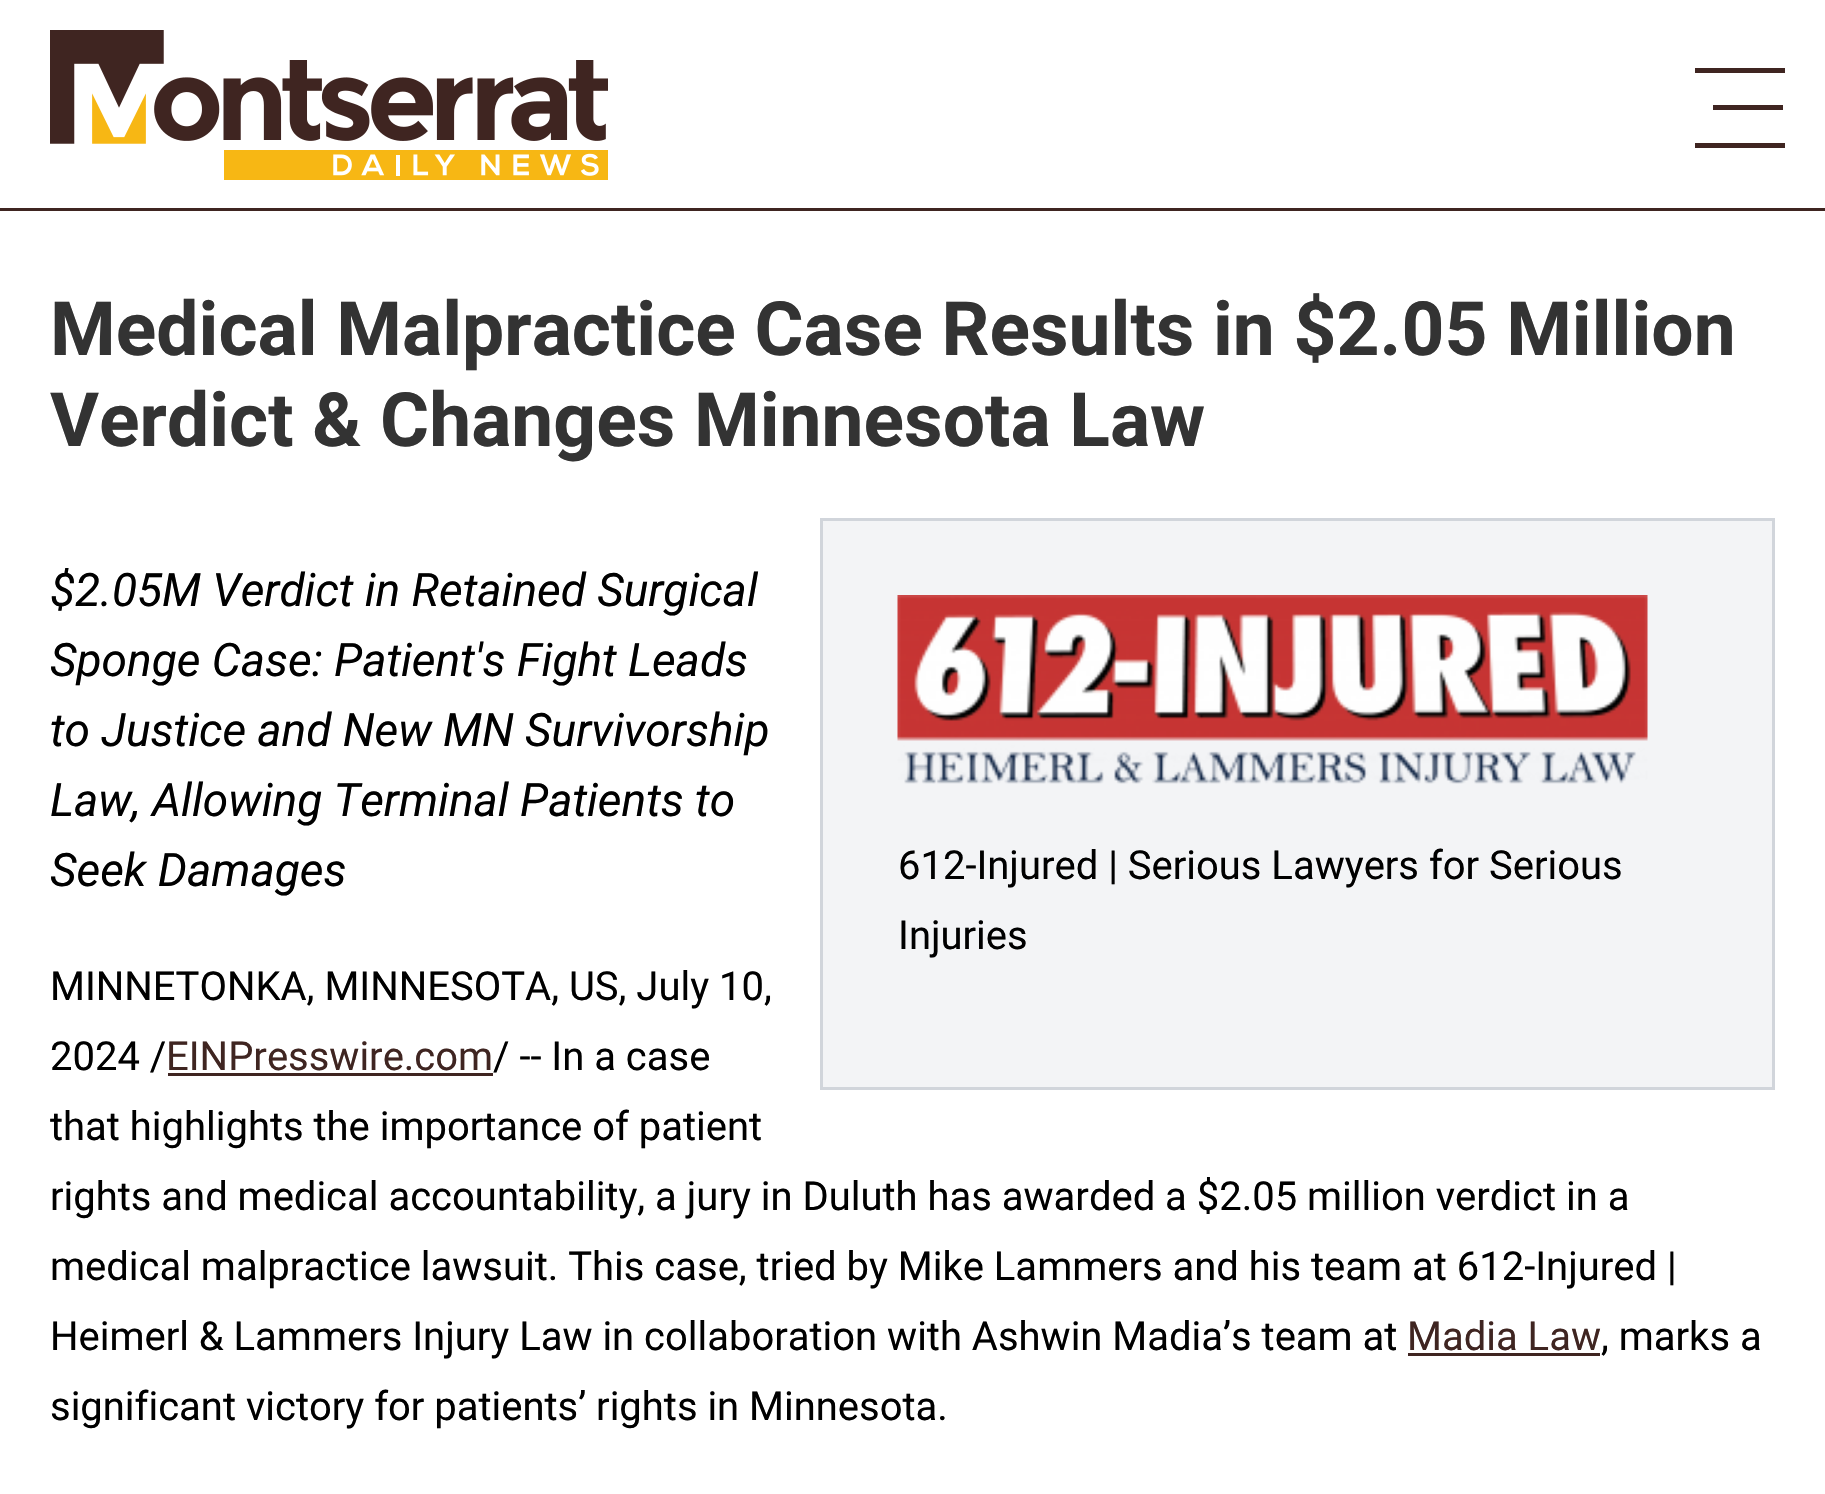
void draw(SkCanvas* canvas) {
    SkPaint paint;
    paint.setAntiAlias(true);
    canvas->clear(0xFFFFFFFF);
    canvas->drawImageRect(SkImages::DeferredFromEncodedData(SkData::MakeFromFileName("img1.png")), SkRect::MakeXYWH(50, 30, 558, 150), SkSamplingOptions());
    paint.setColor(0xFF3F2521);
    canvas->drawRect(SkRect::MakeXYWH(1695, 68, 90, 5), paint);
    canvas->drawRect(SkRect::MakeXYWH(1713, 105, 70, 5), paint);
    canvas->drawRect(SkRect::MakeXYWH(1695, 143, 90, 5), paint);
    canvas->drawRect(SkRect::MakeXYWH(0, 208, 1825, 3), paint);
    SkFont font1(fontMgr->matchFamilyStyle("Roboto", SkFontStyle::Bold()), 75);
    font1.setSubpixel(true);
    paint.setColor(0xFF333333);
    canvas->drawString("Medical Malpractice Case Results in $2.05 Million", 50, 355, font1, paint);
    canvas->drawString("Verdict & Changes Minnesota Law", 50, 446, font1, paint);
    SkFont font2(fontMgr->matchFamilyStyle("Roboto", SkFontStyle::Italic()), 46);
    font2.setSubpixel(true);
    paint.setColor(0xFF000000);
    canvas->drawString("$2.05M Verdict in Retained Surgical", 50, 606, font2, paint);
    canvas->drawString("Sponge Case: Patient's Fight Leads", 50, 676, font2, paint);
    canvas->drawString("to Justice and New MN Survivorship", 50, 746, font2, paint);
    canvas->drawString("Law, Allowing Terminal Patients to", 50, 816, font2, paint);
    canvas->drawString("Seek Damages", 50, 886, font2, paint);
    paint.setColor(0xFFF3F4F6);
    canvas->drawRect(SkRect::MakeXYWH(821.5f, 519.5f, 952, 569), paint);
    paint.setStyle(SkPaint::kStroke_Style);
    paint.setStrokeWidth(3);
    paint.setColor(0xFFD1D5DB);
    canvas->drawRect(SkRect::MakeXYWH(821.5f, 519.5f, 952, 569), paint);
    canvas->drawImageRect(SkImages::DeferredFromEncodedData(SkData::MakeFromFileName("img2.png")), SkRect::MakeXYWH(897, 595, 751, 189), SkSamplingOptions());
    SkFont font3(fontMgr->matchFamilyStyle("Roboto", SkFontStyle::Normal()), 40);
    font3.setSubpixel(true);
    paint.setStyle(SkPaint::kFill_Style);
    paint.setColor(0xFF000000);
    canvas->drawString("612-Injured | Serious Lawyers for Serious", 898, 879, font3, paint);
    canvas->drawString("Injuries", 898, 949, font3, paint);
    canvas->drawString("MINNETONKA, MINNESOTA, US, July 10,", 50, 1000, font3, paint);
    canvas->drawString("2024 /", 50, 1070, font3, paint);
    paint.setColor(0xFF3F2521);
    canvas->drawString("EINPresswire.com", 166, 1070, font3, paint);
    canvas->drawRect(SkRect::MakeXYWH(168, 1073, 325, 3), paint);
    paint.setColor(0xFF000000);
    canvas->drawString("/ -- In a case", 493, 1070, font3, paint);
    canvas->drawString("that highlights the importance of patient", 50, 1140, font3, paint);
    canvas->drawString("rights and medical accountability, a jury in Duluth has awarded a $2.05 million verdict in a", 50, 1210, font3, paint);
    canvas->drawString("medical malpractice lawsuit. This case, tried by Mike Lammers and his team at 612-Injured |", 50, 1280, font3, paint);
    canvas->drawString("Heimerl & Lammers Injury Law in collaboration with Ashwin Madia’s team at", 50, 1350, font3, paint);
    paint.setColor(0xFF3F2521);
    canvas->drawString("Madia Law", 1407, 1350, font3, paint);
    canvas->drawRect(SkRect::MakeXYWH(1408, 1353, 192, 3), paint);
    paint.setColor(0xFF000000);
    canvas->drawString(", marks a", 1601, 1350, font3, paint);
    canvas->drawString("significant victory for patients’ rights in Minnesota.", 50, 1420, font3, paint);
}
